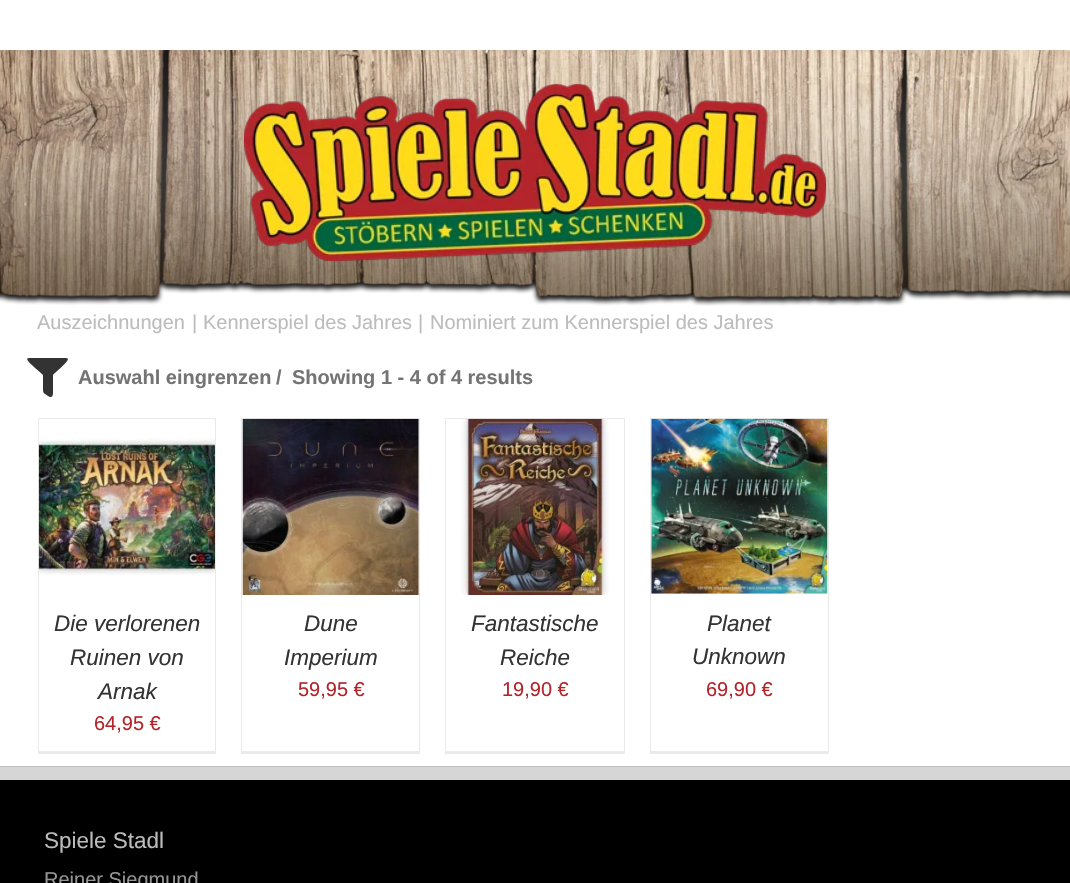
void draw(SkCanvas* canvas) {
    SkPaint paint;
    paint.setAntiAlias(true);
    canvas->clear(0xFFD7D6D6);
    paint.setColor(0xFFFFFFFF);
    canvas->drawRect(SkRect::MakeXYWH(0, 0, 1070, 338), paint);
    canvas->drawImageRect(SkImages::DeferredFromEncodedData(SkData::MakeFromFileName("img1.png")), SkRect::MakeXYWH(0, 50, 1070, 256), SkSamplingOptions());
    canvas->drawImageRect(SkImages::DeferredFromEncodedData(SkData::MakeFromFileName("img2.png")), SkRect::MakeXYWH(243, 83, 584, 179), SkSamplingOptions());
    SkFont font1(fontMgr->matchFamilyStyle("Liberation Sans", SkFontStyle::Normal()), 20);
    font1.setSubpixel(true);
    paint.setColor(0xFFBCBCBC);
    canvas->drawString("Auszeichnungen", 37, 329, font1, paint);
    canvas->drawString("|", 192, 329, font1, paint);
    canvas->drawString("Kennerspiel des Jahres", 203, 329, font1, paint);
    canvas->drawString("|", 418, 329, font1, paint);
    canvas->drawString("Nominiert zum Kennerspiel des Jahres", 430, 329, font1, paint);
    paint.setColor(0xFFFFFFFF);
    canvas->drawRect(SkRect::MakeXYWH(0, 338, 1070, 428), paint);
    paint.setColor(0xFF333333);
    canvas->drawPath(SkPathBuilder().moveTo(66, 358).cubicTo(73, 358, 59, 369, 53, 375).lineTo(53, 389).cubicTo(53, 392, 54, 400, 48, 396).cubicTo(44, 393, 43, 394, 43, 389).lineTo(43, 375).cubicTo(37, 369, 22, 358, 29, 358).close().detach(), paint);
    SkFont font2(fontMgr->matchFamilyStyle("Liberation Sans", SkFontStyle::Bold()), 20);
    font2.setSubpixel(true);
    paint.setColor(0xFF747474);
    canvas->drawString("Auswahl eingrenzen", 78, 384, font2, paint);
    canvas->drawString("/", 276, 384, font2, paint);
    canvas->drawString("Showing 1 - 4 of 4 results", 292, 384, font2, paint);
    paint.setColor(0xFFEBEAEA);
    canvas->drawRect(SkRect::MakeXYWH(38, 418, 178, 1), paint);
    canvas->drawRect(SkRect::MakeXYWH(215, 418, 1, 336), paint);
    canvas->drawRect(SkRect::MakeXYWH(38, 751, 178, 3), paint);
    canvas->drawRect(SkRect::MakeXYWH(38, 418, 1, 336), paint);
    canvas->drawImageRect(SkImages::DeferredFromEncodedData(SkData::MakeFromFileName("img3.png")), SkRect::MakeXYWH(38, 438, 177, 137), SkSamplingOptions());
    SkFont font3(fontMgr->matchFamilyStyle("Liberation Sans", SkFontStyle::Italic()), 22.5f);
    font3.setSubpixel(true);
    paint.setColor(0xFF333333);
    canvas->drawString("Die verlorenen", 54, 631, font3, paint);
    canvas->drawString("Ruinen von", 70, 665, font3, paint);
    canvas->drawString("Arnak", 98, 699, font3, paint);
    paint.setColor(0xFFB3242A);
    canvas->drawString("64,95 €", 94, 730, font1, paint);
    paint.setColor(0xFFEBEAEA);
    canvas->drawRect(SkRect::MakeXYWH(241, 418, 179, 1), paint);
    canvas->drawRect(SkRect::MakeXYWH(419, 418, 1, 336), paint);
    canvas->drawRect(SkRect::MakeXYWH(241, 751, 179, 3), paint);
    canvas->drawRect(SkRect::MakeXYWH(241, 418, 1, 336), paint);
    canvas->drawImageRect(SkImages::DeferredFromEncodedData(SkData::MakeFromFileName("img4.png")), SkRect::MakeXYWH(242, 418, 177, 177), SkSamplingOptions());
    paint.setColor(0xFF333333);
    canvas->drawString("Dune", 304, 631, font3, paint);
    canvas->drawString("Imperium", 284, 665, font3, paint);
    paint.setColor(0xFFB3242A);
    canvas->drawString("59,95 €", 298, 696, font1, paint);
    paint.setColor(0xFFEBEAEA);
    canvas->drawRect(SkRect::MakeXYWH(445, 418, 180, 1), paint);
    canvas->drawRect(SkRect::MakeXYWH(624, 418, 1, 336), paint);
    canvas->drawRect(SkRect::MakeXYWH(445, 751, 180, 3), paint);
    canvas->drawRect(SkRect::MakeXYWH(445, 418, 1, 336), paint);
    canvas->drawImageRect(SkImages::DeferredFromEncodedData(SkData::MakeFromFileName("img5.png")), SkRect::MakeXYWH(460, 418, 149, 177), SkSamplingOptions());
    paint.setColor(0xFF333333);
    canvas->drawString("Fantastische", 471, 631, font3, paint);
    canvas->drawString("Reiche", 500, 665, font3, paint);
    paint.setColor(0xFFB3242A);
    canvas->drawString("19,90 €", 502, 696, font1, paint);
    paint.setColor(0xFFEBEAEA);
    canvas->drawRect(SkRect::MakeXYWH(650, 418, 179, 1), paint);
    canvas->drawRect(SkRect::MakeXYWH(828, 418, 1, 336), paint);
    canvas->drawRect(SkRect::MakeXYWH(650, 751, 179, 3), paint);
    canvas->drawRect(SkRect::MakeXYWH(650, 418, 1, 336), paint);
    canvas->drawImageRect(SkImages::DeferredFromEncodedData(SkData::MakeFromFileName("img6.png")), SkRect::MakeXYWH(651, 418, 177, 176), SkSamplingOptions());
    paint.setColor(0xFF333333);
    canvas->drawString("Planet", 707, 631, font3, paint);
    canvas->drawString("Unknown", 692, 664, font3, paint);
    paint.setColor(0xFFB3242A);
    canvas->drawString("69,90 €", 706, 696, font1, paint);
    paint.setColor(0xFFBCBCBC);
    canvas->drawRect(SkRect::MakeXYWH(0, 766, 1070, 1), paint);
    paint.setColor(0xFF000000);
    canvas->drawRect(SkRect::MakeXYWH(0, 780, 1070, 103), paint);
    SkFont font4(fontMgr->matchFamilyStyle("Liberation Sans", SkFontStyle::Normal()), 22.5f);
    font4.setSubpixel(true);
    paint.setColor(0xFFBCBCBC);
    canvas->drawString("Spiele Stadl", 44, 848, font4, paint);
    paint.setColor(0xFF969696);
    canvas->drawString("Reiner Siegmund", 44, 886, font1, paint);
}
